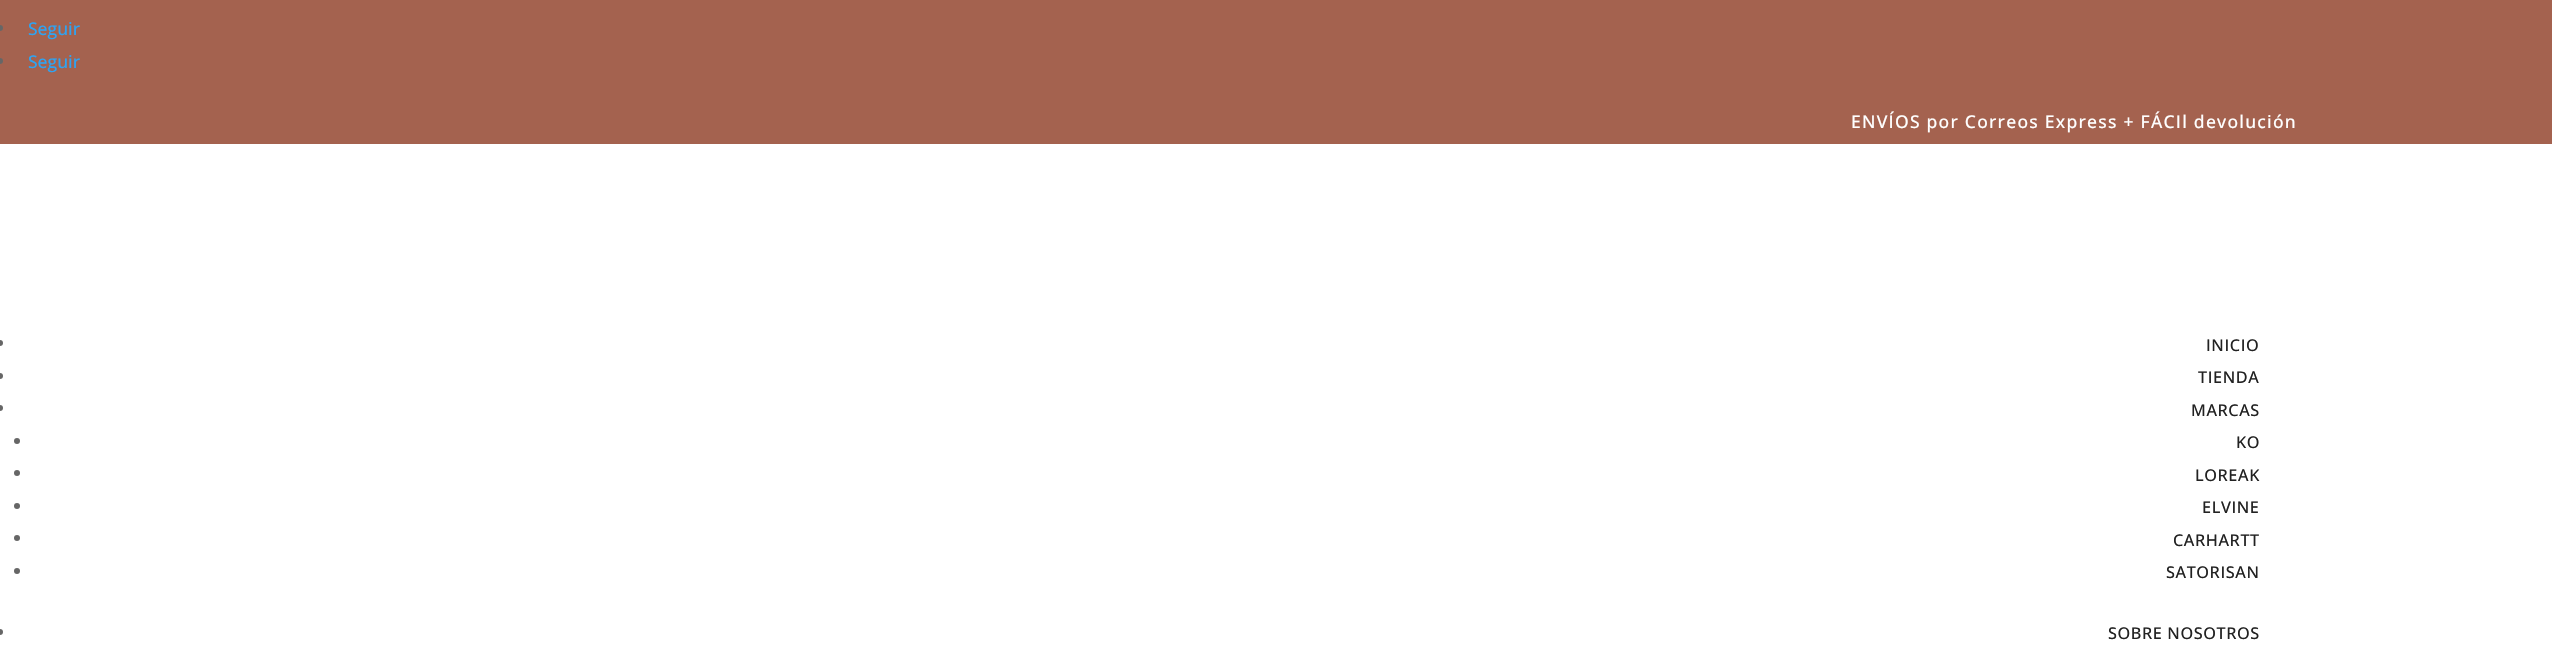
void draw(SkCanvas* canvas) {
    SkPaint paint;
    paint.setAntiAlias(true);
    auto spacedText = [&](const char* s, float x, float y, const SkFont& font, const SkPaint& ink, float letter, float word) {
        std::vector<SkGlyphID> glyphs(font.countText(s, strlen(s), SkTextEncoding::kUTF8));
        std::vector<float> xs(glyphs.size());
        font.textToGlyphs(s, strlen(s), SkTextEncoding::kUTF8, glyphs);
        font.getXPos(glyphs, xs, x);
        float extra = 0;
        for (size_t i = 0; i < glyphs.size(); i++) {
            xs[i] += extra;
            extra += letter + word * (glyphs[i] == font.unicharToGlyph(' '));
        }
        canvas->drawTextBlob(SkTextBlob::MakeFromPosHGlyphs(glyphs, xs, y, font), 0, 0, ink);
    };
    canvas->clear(0xFFA4624F);
    paint.setColor(0xFF666666);
    canvas->drawCircle(0, 28, 3, paint);
    SkFont font1(fontMgr->matchFamilyStyle("Open Sans", SkFontStyle(500, SkFontStyle::kNormal_Width, SkFontStyle::kUpright_Slant)), 17.5f);
    font1.setSubpixel(true);
    paint.setColor(0xFF2EA3F2);
    canvas->drawString("Seguir", 28, 35, font1, paint);
    paint.setColor(0xFF666666);
    canvas->drawCircle(0, 61, 3, paint);
    paint.setColor(0xFF2EA3F2);
    canvas->drawString("Seguir", 28, 68, font1, paint);
    paint.setColor(0xFFFFFFFF);
    spacedText("ENVÍOS por Correos Express + FÁCIl devolución", 1851, 128, font1, paint, 1.25f, 0);
    canvas->drawRect(SkRect::MakeXYWH(0, 144, 2552, 511), paint);
    paint.setColor(0xFF666666);
    canvas->drawCircle(0, 343, 3, paint);
    SkFont font2(fontMgr->matchFamilyStyle("Open Sans", SkFontStyle(500, SkFontStyle::kNormal_Width, SkFontStyle::kUpright_Slant)), 16.25f);
    font2.setSubpixel(true);
    paint.setColor(0xFF222222);
    spacedText("INICIO", 2206, 351, font2, paint, 0.6f, 0);
    paint.setColor(0xFF666666);
    canvas->drawCircle(0, 376, 3, paint);
    paint.setColor(0xFF222222);
    spacedText("TIENDA", 2198, 383, font2, paint, 0.6f, 0);
    paint.setColor(0xFF666666);
    canvas->drawCircle(0, 408, 3, paint);
    paint.setColor(0xFF222222);
    spacedText("MARCAS", 2191, 416, font2, paint, 0.6f, 0);
    paint.setColor(0xFF666666);
    canvas->drawCircle(17, 441, 3, paint);
    paint.setColor(0xFF222222);
    spacedText("KO", 2236, 448, font2, paint, 0.6f, 0);
    paint.setColor(0xFF666666);
    canvas->drawCircle(17, 473, 3, paint);
    paint.setColor(0xFF222222);
    spacedText("LOREAK", 2195, 481, font2, paint, 0.6f, 0);
    paint.setColor(0xFF666666);
    canvas->drawCircle(17, 506, 3, paint);
    paint.setColor(0xFF222222);
    spacedText("ELVINE", 2202, 513, font2, paint, 0.6f, 0);
    paint.setColor(0xFF666666);
    canvas->drawCircle(17, 538, 3, paint);
    paint.setColor(0xFF222222);
    spacedText("CARHARTT", 2173, 546, font2, paint, 0.6f, 0);
    paint.setColor(0xFF666666);
    canvas->drawCircle(17, 571, 3, paint);
    paint.setColor(0xFF222222);
    spacedText("SATORISAN", 2166, 578, font2, paint, 0.6f, 0);
    paint.setColor(0xFF666666);
    canvas->drawCircle(0, 632, 3, paint);
    paint.setColor(0xFF222222);
    spacedText("SOBRE NOSOTROS", 2108, 639, font2, paint, 0.6f, 0);
}
